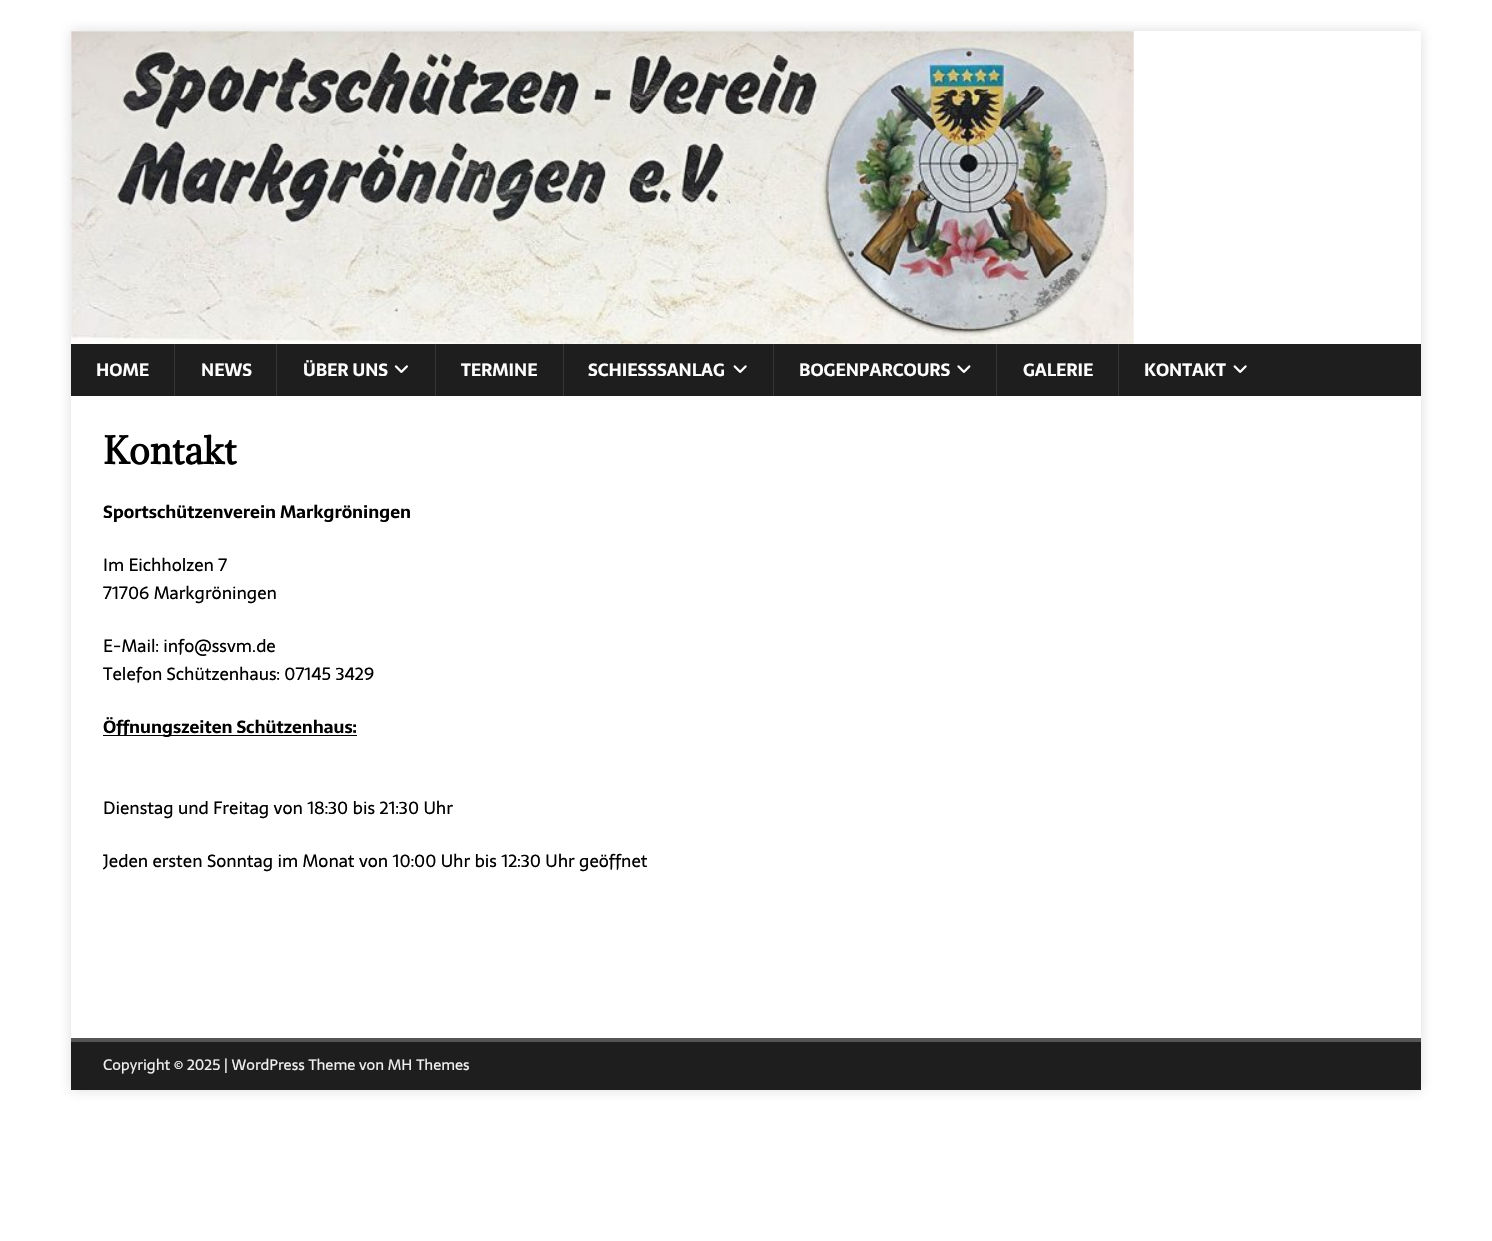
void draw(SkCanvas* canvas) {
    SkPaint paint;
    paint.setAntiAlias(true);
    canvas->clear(0xFFFFFFFF);
    paint.setColor(0x2B323232);
    paint.setMaskFilter(SkMaskFilter::MakeBlur(kNormal_SkBlurStyle, 6));
    canvas->drawRect(SkRect::MakeXYWH(71, 31, 1350, 1059), paint);
    paint.setMaskFilter(nullptr);
    paint.setColor(0xFFFFFFFF);
    canvas->drawRect(SkRect::MakeXYWH(71, 31, 1350, 313), paint);
    canvas->drawImageRect(SkImages::DeferredFromEncodedData(SkData::MakeFromFileName("img1.png")), SkRect::MakeXYWH(71, 31, 1063, 313), SkSamplingOptions());
    paint.setColor(0xFF1F1E1E);
    canvas->drawRect(SkRect::MakeXYWH(71, 344, 1350, 52), paint);
    SkFont font1(fontMgr->matchFamilyStyle("Sarala", SkFontStyle::Bold()), 17.5f);
    font1.setSubpixel(true);
    paint.setColor(0xFFFFFFFF);
    canvas->drawString("HOME", 96, 376, font1, paint);
    paint.setColor(0xFF353535);
    canvas->drawRect(SkRect::MakeXYWH(174, 344, 1, 52), paint);
    paint.setColor(0xFFFFFFFF);
    canvas->drawString("NEWS", 201, 376, font1, paint);
    paint.setColor(0xFF353535);
    canvas->drawRect(SkRect::MakeXYWH(276, 344, 1, 52), paint);
    paint.setColor(0xFFFFFFFF);
    canvas->drawString("ÜBER UNS", 303, 376, font1, paint);
    canvas->drawImageRect(SkImages::DeferredFromEncodedData(SkData::MakeFromFileName("img2.png")), SkRect::MakeXYWH(394, 365, 14, 8), SkSamplingOptions());
    paint.setColor(0xFF353535);
    canvas->drawRect(SkRect::MakeXYWH(435, 344, 1, 52), paint);
    paint.setColor(0xFFFFFFFF);
    canvas->drawString("TERMINE", 461, 376, font1, paint);
    paint.setColor(0xFF353535);
    canvas->drawRect(SkRect::MakeXYWH(563, 344, 1, 52), paint);
    paint.setColor(0xFFFFFFFF);
    canvas->drawString("SCHIESSSANLAG", 588, 376, font1, paint);
    canvas->drawImageRect(SkImages::DeferredFromEncodedData(SkData::MakeFromFileName("img3.png")), SkRect::MakeXYWH(733, 365, 14, 8), SkSamplingOptions());
    paint.setColor(0xFF353535);
    canvas->drawRect(SkRect::MakeXYWH(773, 344, 1, 52), paint);
    paint.setColor(0xFFFFFFFF);
    canvas->drawString("BOGENPARCOURS", 799, 376, font1, paint);
    canvas->drawImageRect(SkImages::DeferredFromEncodedData(SkData::MakeFromFileName("img4.png")), SkRect::MakeXYWH(957, 365, 14, 8), SkSamplingOptions());
    paint.setColor(0xFF353535);
    canvas->drawRect(SkRect::MakeXYWH(996, 344, 1, 52), paint);
    paint.setColor(0xFFFFFFFF);
    canvas->drawString("GALERIE", 1023, 376, font1, paint);
    paint.setColor(0xFF353535);
    canvas->drawRect(SkRect::MakeXYWH(1118, 344, 1, 52), paint);
    paint.setColor(0xFFFFFFFF);
    canvas->drawString("KONTAKT", 1144, 376, font1, paint);
    canvas->drawImageRect(SkImages::DeferredFromEncodedData(SkData::MakeFromFileName("img3.png")), SkRect::MakeXYWH(1233, 365, 14, 8), SkSamplingOptions());
    canvas->drawRect(SkRect::MakeXYWH(71, 396, 1350, 642), paint);
    SkFont font2(fontMgr->matchFamilyStyle("Adamina", SkFontStyle::Bold()), 35);
    font2.setSubpixel(true);
    paint.setColor(0xFF000000);
    canvas->drawString("Kontakt", 103, 464, font2, paint);
    canvas->drawString("Sportschützenverein Markgröningen", 103, 518, font1, paint);
    SkFont font3(fontMgr->matchFamilyStyle("Sarala", SkFontStyle::Normal()), 17.5f);
    font3.setSubpixel(true);
    canvas->drawString("Im Eichholzen 7", 103, 571, font3, paint);
    canvas->drawString("71706 Markgröningen", 103, 599, font3, paint);
    canvas->drawString("E-Mail: info@ssvm.de", 103, 652, font3, paint);
    canvas->drawString("Telefon Schützenhaus: 07145 3429", 103, 680, font3, paint);
    canvas->drawRect(SkRect::MakeXYWH(103, 735, 254, 1), paint);
    canvas->drawString("Öffnungszeiten Schützenhaus:", 103, 733, font1, paint);
    canvas->drawString("Dienstag und Freitag von 18:30 bis 21:30 Uhr", 103, 814, font3, paint);
    canvas->save();
    canvas->clipRect(SkRect::MakeXYWH(103, 428, 847, 578));
    canvas->drawString("Jeden ersten Sonntag im Monat von 10:00 Uhr bis 12:30 Uhr geöffnet", 103, 867, font3, paint);
    canvas->restore();
    paint.setColor(0xFF1F1E1E);
    canvas->drawRect(SkRect::MakeXYWH(71, 1042, 1350, 48), paint);
    paint.setColor(0xFF555555);
    canvas->drawRect(SkRect::MakeXYWH(71, 1038, 1350, 4), paint);
    SkFont font4(fontMgr->matchFamilyStyle("Sarala", SkFontStyle::Normal()), 15);
    font4.setSubpixel(true);
    paint.setColor(0xFFEFEFEF);
    canvas->drawString("Copyright © 2025 | WordPress Theme von MH Themes", 103, 1070, font4, paint);
}
